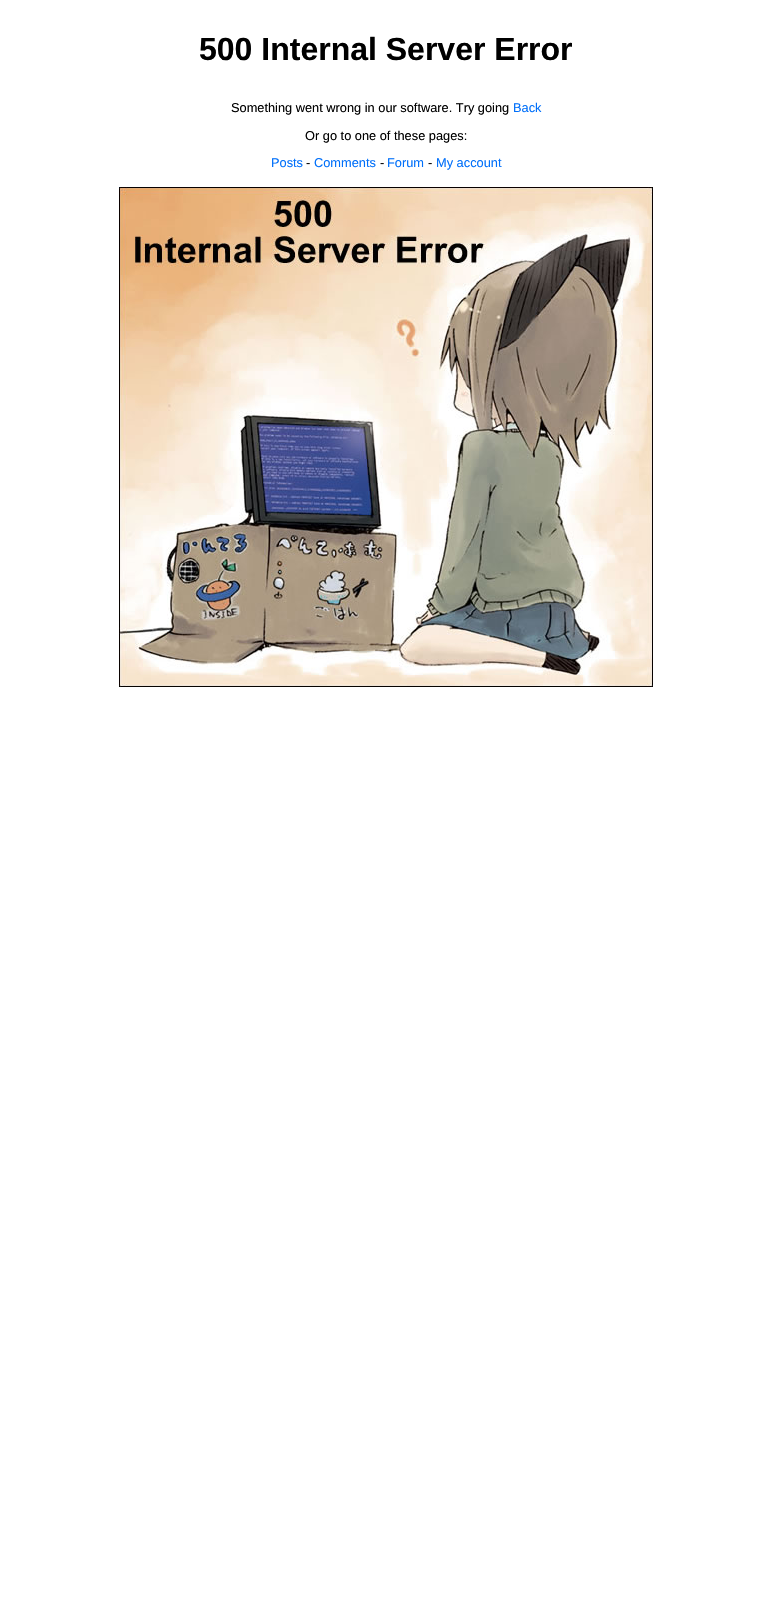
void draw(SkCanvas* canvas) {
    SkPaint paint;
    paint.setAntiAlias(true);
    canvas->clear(0xFFFFFFFF);
    SkFont font1(fontMgr->matchFamilyStyle("Liberation Sans", SkFontStyle::Bold()), 32);
    font1.setSubpixel(true);
    paint.setColor(0xFF000000);
    canvas->drawString("500 Internal Server Error", 199, 60, font1, paint);
    SkFont font2(fontMgr->matchFamilyStyle("Liberation Sans", SkFontStyle::Normal()), 12.8f);
    font2.setSubpixel(true);
    canvas->drawString("Something went wrong in our software. Try going", 231, 112, font2, paint);
    paint.setColor(0xFF006FFA);
    canvas->drawString("Back", 513, 112, font2, paint);
    paint.setColor(0xFF000000);
    canvas->drawString("Or go to one of these pages:", 305, 140, font2, paint);
    paint.setColor(0xFF006FFA);
    canvas->drawString("Posts", 271, 167, font2, paint);
    paint.setColor(0xFF000000);
    canvas->drawString("-", 306, 167, font2, paint);
    paint.setColor(0xFF006FFA);
    canvas->drawString("Comments", 314, 167, font2, paint);
    paint.setColor(0xFF000000);
    canvas->drawString("-", 380, 167, font2, paint);
    paint.setColor(0xFF006FFA);
    canvas->drawString("Forum", 387, 167, font2, paint);
    paint.setColor(0xFF000000);
    canvas->drawString("-", 428, 167, font2, paint);
    paint.setColor(0xFF006FFA);
    canvas->drawString("My account", 436, 167, font2, paint);
    canvas->drawImageRect(SkImages::DeferredFromEncodedData(SkData::MakeFromFileName("img1.png")), SkRect::MakeXYWH(119, 187, 534, 500), SkSamplingOptions());
}
